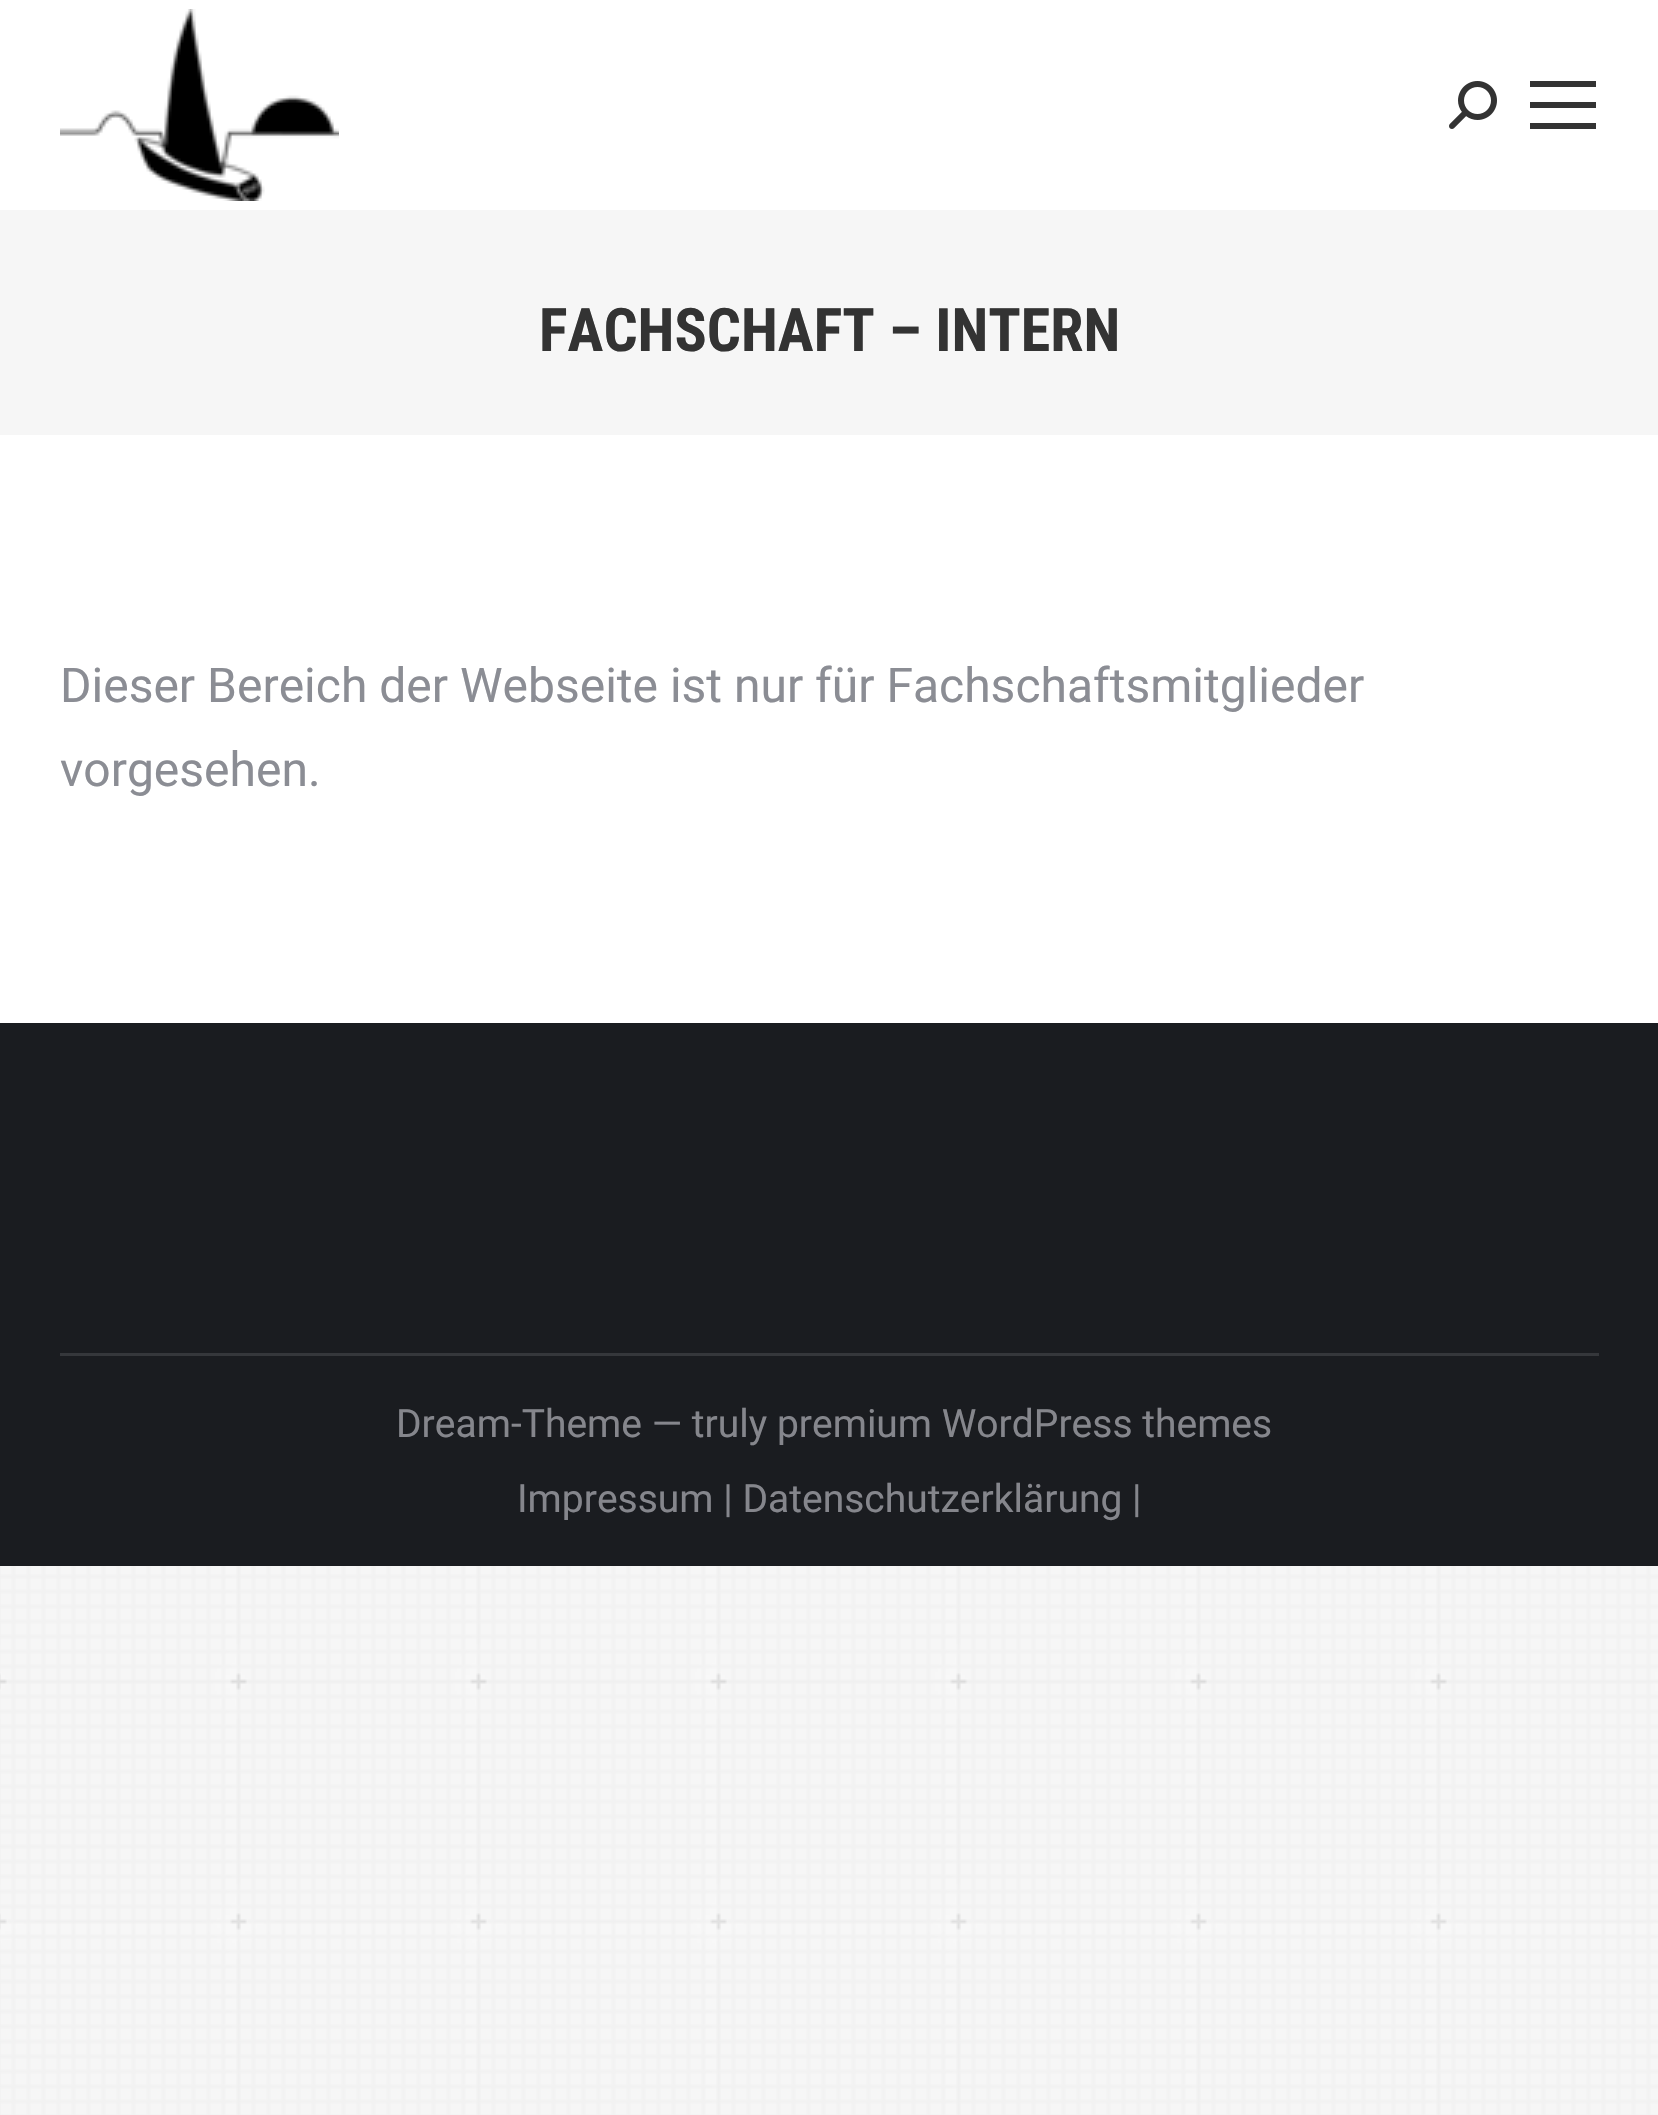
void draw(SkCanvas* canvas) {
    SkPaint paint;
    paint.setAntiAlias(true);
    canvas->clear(0xFFF7F7F7);
    canvas->drawImageRect(SkImages::DeferredFromEncodedData(SkData::MakeFromFileName("img1.png")), SkRect::MakeXYWH(0, 1566, 1658, 549), SkSamplingOptions());
    paint.setColor(0xFFFFFFFF);
    canvas->drawRect(SkRect::MakeXYWH(0, 0, 1658, 1023), paint);
    canvas->drawImageRect(SkImages::DeferredFromEncodedData(SkData::MakeFromFileName("img2.png")), SkRect::MakeXYWH(60, 9, 279, 192), SkSamplingOptions());
    canvas->drawImageRect(SkImages::DeferredFromEncodedData(SkData::MakeFromFileName("img3.png")), SkRect::MakeXYWH(1449, 81, 48, 48), SkSamplingOptions());
    paint.setColor(0xFF333333);
    canvas->drawRect(SkRect::MakeXYWH(1530, 81, 66, 6), paint);
    canvas->drawRect(SkRect::MakeXYWH(1530, 102, 66, 6), paint);
    canvas->drawRect(SkRect::MakeXYWH(1530, 123, 66, 6), paint);
    paint.setColor(0xFFF6F6F6);
    canvas->drawRect(SkRect::MakeXYWH(0, 210, 1658, 225), paint);
    SkFont font1(fontMgr->matchFamilyStyle("Roboto Condensed", SkFontStyle::Bold()), 60);
    font1.setSubpixel(true);
    paint.setColor(0xFF333333);
    canvas->drawString("FACHSCHAFT – INTERN", 539, 351, font1, paint);
    SkFont font2(fontMgr->matchFamilyStyle("Roboto", SkFontStyle::Normal()), 48);
    font2.setSubpixel(true);
    paint.setColor(0xFF8B8D94);
    canvas->drawString("Dieser Bereich der Webseite ist nur für Fachschaftsmitglieder", 60, 702, font2, paint);
    canvas->drawString("vorgesehen.", 60, 786, font2, paint);
    paint.setColor(0xFF1A1C20);
    canvas->drawRect(SkRect::MakeXYWH(0, 1023, 1658, 543), paint);
    paint.setColor(0xFF35373B);
    canvas->drawRect(SkRect::MakeXYWH(60, 1353, 1539, 3), paint);
    SkFont font3(fontMgr->matchFamilyStyle("Roboto", SkFontStyle::Normal()), 39);
    font3.setSubpixel(true);
    paint.setColor(0xFF85868C);
    canvas->drawString("Dream-Theme — truly premium WordPress themes", 396, 1437, font3, paint);
    canvas->drawString("Impressum | Datenschutzerklärung |", 517, 1512, font3, paint);
}
